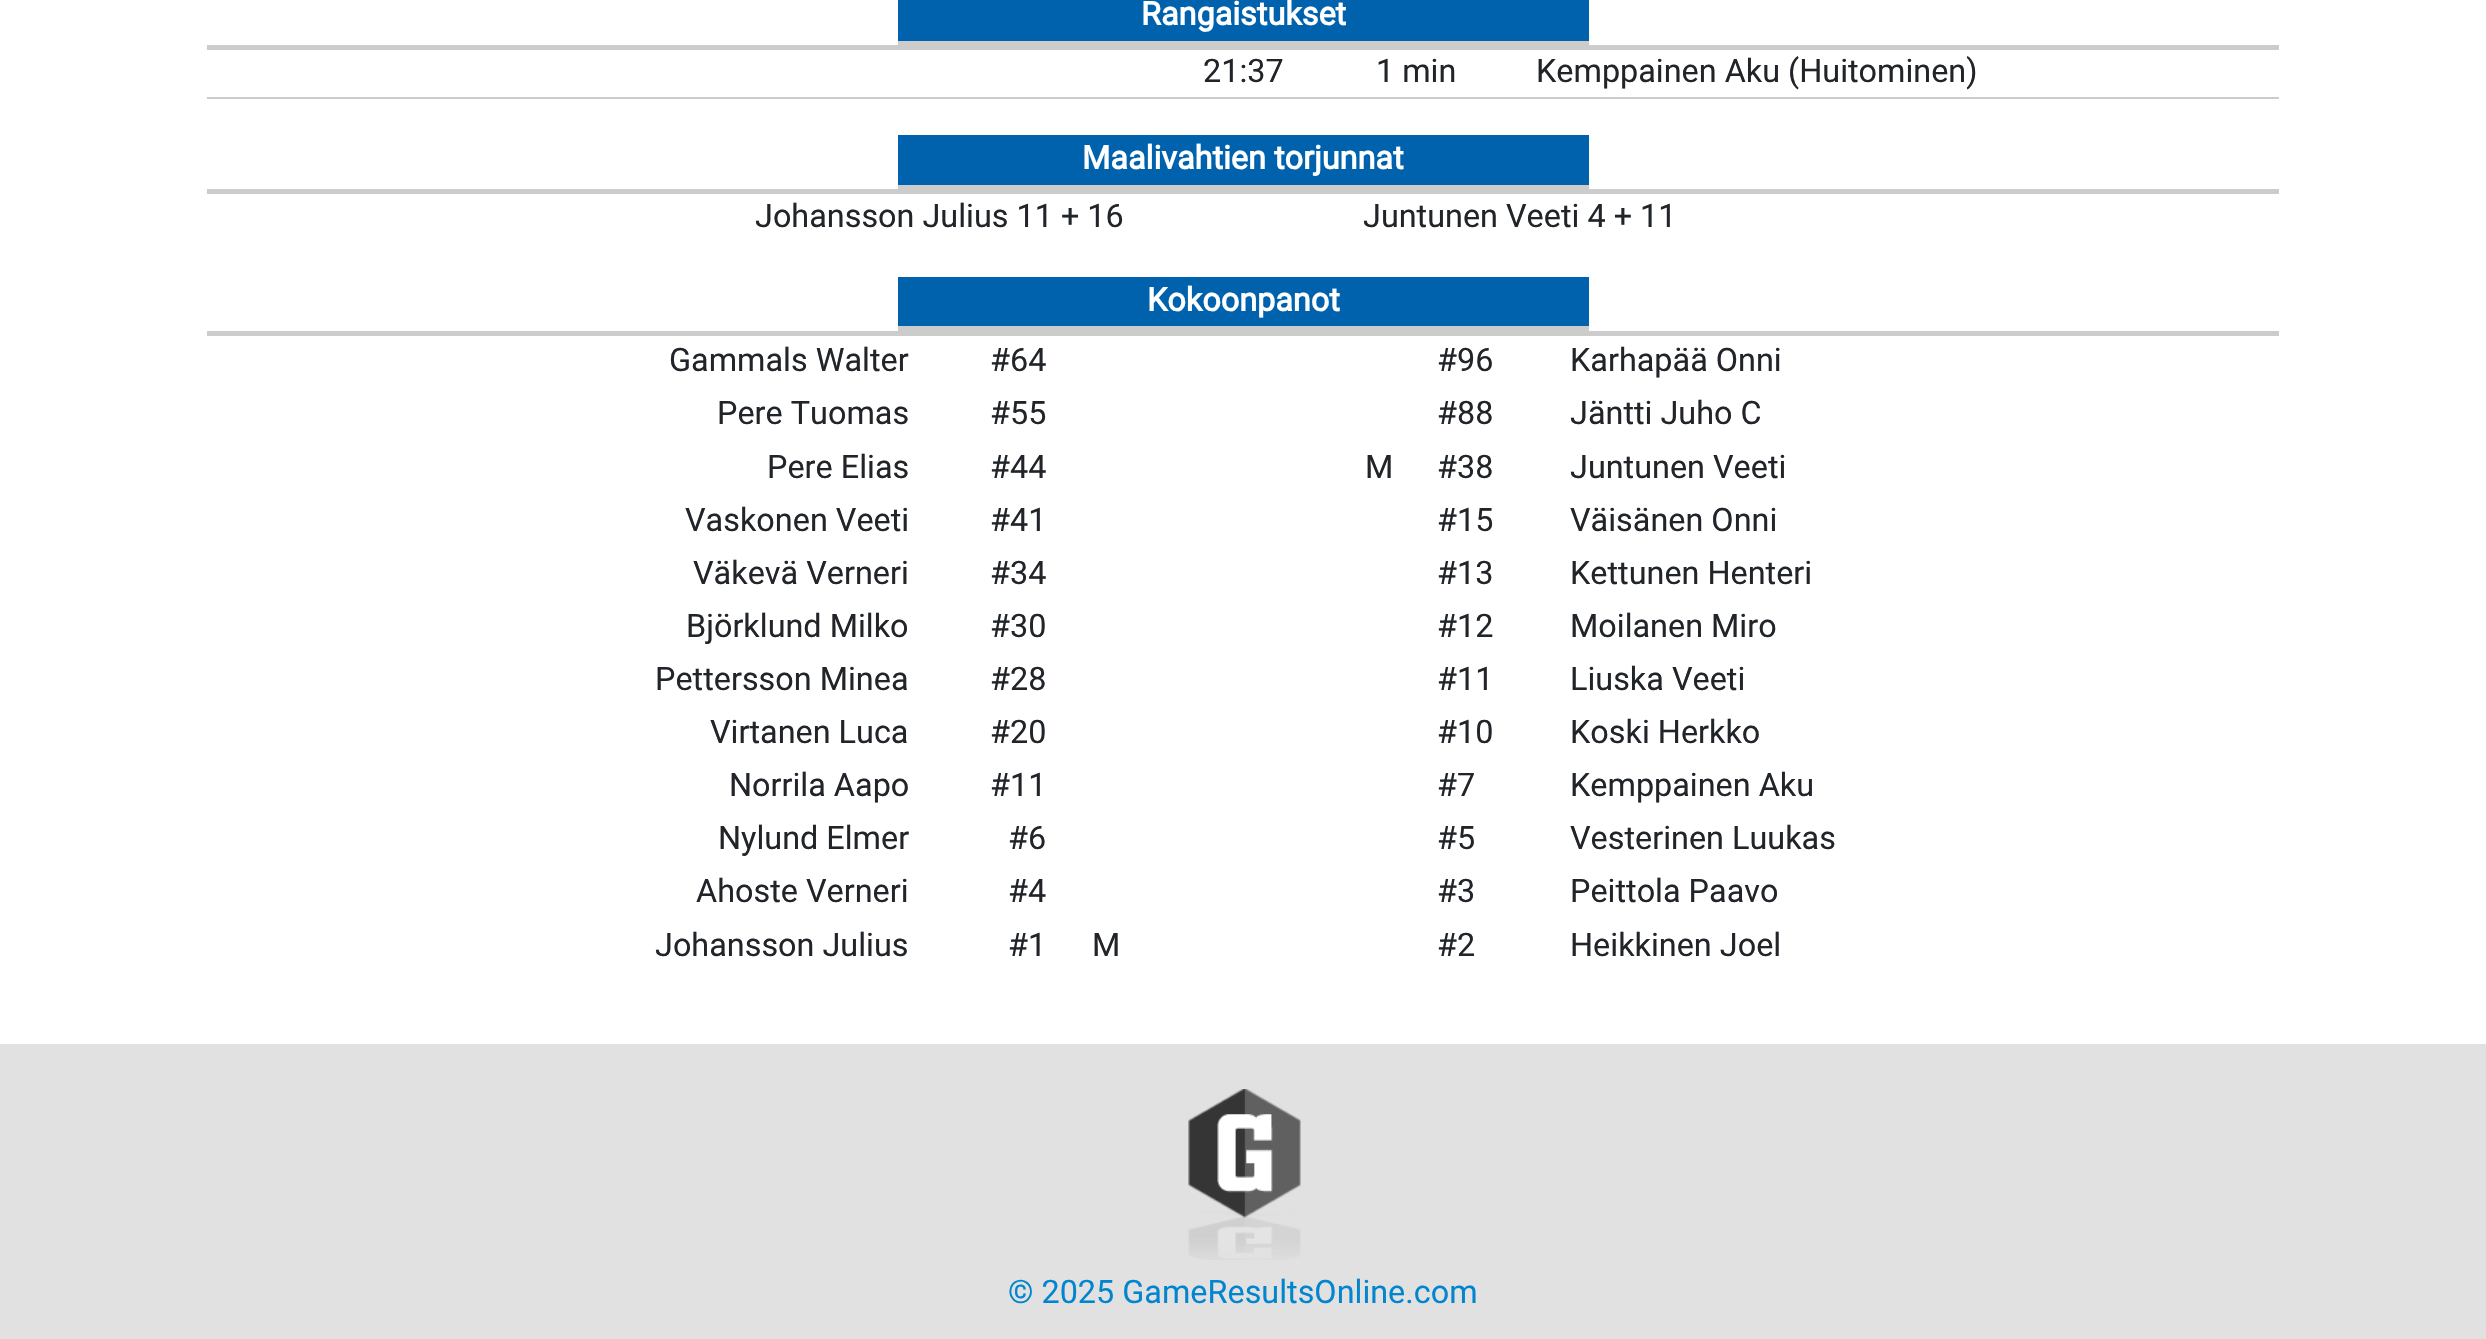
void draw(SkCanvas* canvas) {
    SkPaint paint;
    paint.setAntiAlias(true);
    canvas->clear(0xFFE1E1E1);
    paint.setColor(0xFFFFFFFF);
    canvas->drawRect(SkRect::MakeXYWH(0, 0, 2486, 1044), paint);
    paint.setColor(0xFFCCCCCC);
    canvas->drawRect(SkRect::MakeXYWH(207, 45, 2072, 5), paint);
    paint.setColor(0xFF0062AD);
    canvas->drawRect(SkRect::MakeXYWH(898, 0, 691, 41), paint);
    paint.setColor(0xFFCCCCCC);
    canvas->drawRect(SkRect::MakeXYWH(898, 41, 691, 4), paint);
    SkFont font1(fontMgr->matchFamilyStyle("Roboto", SkFontStyle::Bold()), 32.4f);
    font1.setSubpixel(true);
    paint.setColor(0xFFFFFFFF);
    canvas->drawString("Rangaistukset", 1141, 25, font1, paint);
    paint.setColor(0xFFCCCCCC);
    canvas->drawRect(SkRect::MakeXYWH(207, 97, 2072, 2), paint);
    SkFont font2(fontMgr->matchFamilyStyle("Roboto", SkFontStyle::Normal()), 32.4f);
    font2.setSubpixel(true);
    paint.setColor(0xFF212529);
    canvas->drawString("21:37", 1203, 82, font2, paint);
    canvas->drawString("1 min", 1376, 82, font2, paint);
    canvas->drawString("Kemppainen Aku (Huitominen)", 1536, 82, font2, paint);
    paint.setColor(0xFFCCCCCC);
    canvas->drawRect(SkRect::MakeXYWH(207, 189, 2072, 5), paint);
    paint.setColor(0xFF0062AD);
    canvas->drawRect(SkRect::MakeXYWH(898, 135, 691, 50), paint);
    paint.setColor(0xFFCCCCCC);
    canvas->drawRect(SkRect::MakeXYWH(898, 185, 691, 4), paint);
    paint.setColor(0xFFFFFFFF);
    canvas->drawString("Maalivahtien torjunnat", 1082, 169, font1, paint);
    paint.setColor(0xFF212529);
    canvas->drawString("Johansson Julius 11 + 16", 755, 227, font2, paint);
    canvas->drawString("Juntunen Veeti 4 + 11", 1363, 227, font2, paint);
    paint.setColor(0xFFCCCCCC);
    canvas->drawRect(SkRect::MakeXYWH(207, 331, 2072, 5), paint);
    paint.setColor(0xFF0062AD);
    canvas->drawRect(SkRect::MakeXYWH(898, 277, 691, 49), paint);
    paint.setColor(0xFFCCCCCC);
    canvas->drawRect(SkRect::MakeXYWH(898, 326, 691, 5), paint);
    paint.setColor(0xFFFFFFFF);
    canvas->drawString("Kokoonpanot", 1147, 311, font1, paint);
    paint.setColor(0xFF212529);
    canvas->drawString("Gammals Walter", 669, 371, font2, paint);
    canvas->drawString("#64", 990, 371, font2, paint);
    canvas->drawString("Pere Tuomas", 717, 424, font2, paint);
    canvas->drawString("#55", 990, 424, font2, paint);
    canvas->drawString("Pere Elias", 767, 478, font2, paint);
    canvas->drawString("#44", 990, 478, font2, paint);
    canvas->drawString("Vaskonen Veeti", 685, 531, font2, paint);
    canvas->drawString("#41", 990, 531, font2, paint);
    canvas->drawString("Väkevä Verneri", 693, 584, font2, paint);
    canvas->drawString("#34", 990, 584, font2, paint);
    canvas->drawString("Björklund Milko", 686, 637, font2, paint);
    canvas->drawString("#30", 990, 637, font2, paint);
    canvas->drawString("Pettersson Minea", 655, 690, font2, paint);
    canvas->drawString("#28", 990, 690, font2, paint);
    canvas->drawString("Virtanen Luca", 710, 743, font2, paint);
    canvas->drawString("#20", 990, 743, font2, paint);
    canvas->drawString("Norrila Aapo", 729, 796, font2, paint);
    canvas->drawString("#11", 990, 796, font2, paint);
    canvas->drawString("Nylund Elmer", 718, 849, font2, paint);
    canvas->drawString("#6", 1008, 849, font2, paint);
    canvas->drawString("Ahoste Verneri", 696, 902, font2, paint);
    canvas->drawString("#4", 1008, 902, font2, paint);
    canvas->drawString("Johansson Julius", 655, 956, font2, paint);
    canvas->drawString("#1", 1008, 956, font2, paint);
    canvas->drawString("M", 1092, 956, font2, paint);
    canvas->drawString("#96", 1437, 371, font2, paint);
    canvas->drawString("Karhapää Onni", 1570, 371, font2, paint);
    canvas->drawString("#88", 1437, 424, font2, paint);
    canvas->drawString("Jäntti Juho C", 1570, 424, font2, paint);
    canvas->drawString("M", 1365, 478, font2, paint);
    canvas->drawString("#38", 1437, 478, font2, paint);
    canvas->drawString("Juntunen Veeti", 1570, 478, font2, paint);
    canvas->drawString("#15", 1437, 531, font2, paint);
    canvas->drawString("Väisänen Onni", 1570, 531, font2, paint);
    canvas->drawString("#13", 1437, 584, font2, paint);
    canvas->drawString("Kettunen Henteri", 1570, 584, font2, paint);
    canvas->drawString("#12", 1437, 637, font2, paint);
    canvas->drawString("Moilanen Miro", 1570, 637, font2, paint);
    canvas->drawString("#11", 1437, 690, font2, paint);
    canvas->drawString("Liuska Veeti", 1570, 690, font2, paint);
    canvas->drawString("#10", 1437, 743, font2, paint);
    canvas->drawString("Koski Herkko", 1570, 743, font2, paint);
    canvas->drawString("#7", 1437, 796, font2, paint);
    canvas->drawString("Kemppainen Aku", 1570, 796, font2, paint);
    canvas->drawString("#5", 1437, 849, font2, paint);
    canvas->drawString("Vesterinen Luukas", 1570, 849, font2, paint);
    canvas->drawString("#3", 1437, 902, font2, paint);
    canvas->drawString("Peittola Paavo", 1570, 902, font2, paint);
    canvas->drawString("#2", 1437, 956, font2, paint);
    canvas->drawString("Heikkinen Joel", 1570, 956, font2, paint);
    canvas->drawImageRect(SkImages::DeferredFromEncodedData(SkData::MakeFromFileName("img1.png")), SkRect::MakeXYWH(1188, 1089, 113, 171), SkSamplingOptions());
    paint.setColor(0xFF0285CF);
    canvas->drawString("© 2025 GameResultsOnline.com", 1008, 1303, font2, paint);
}
